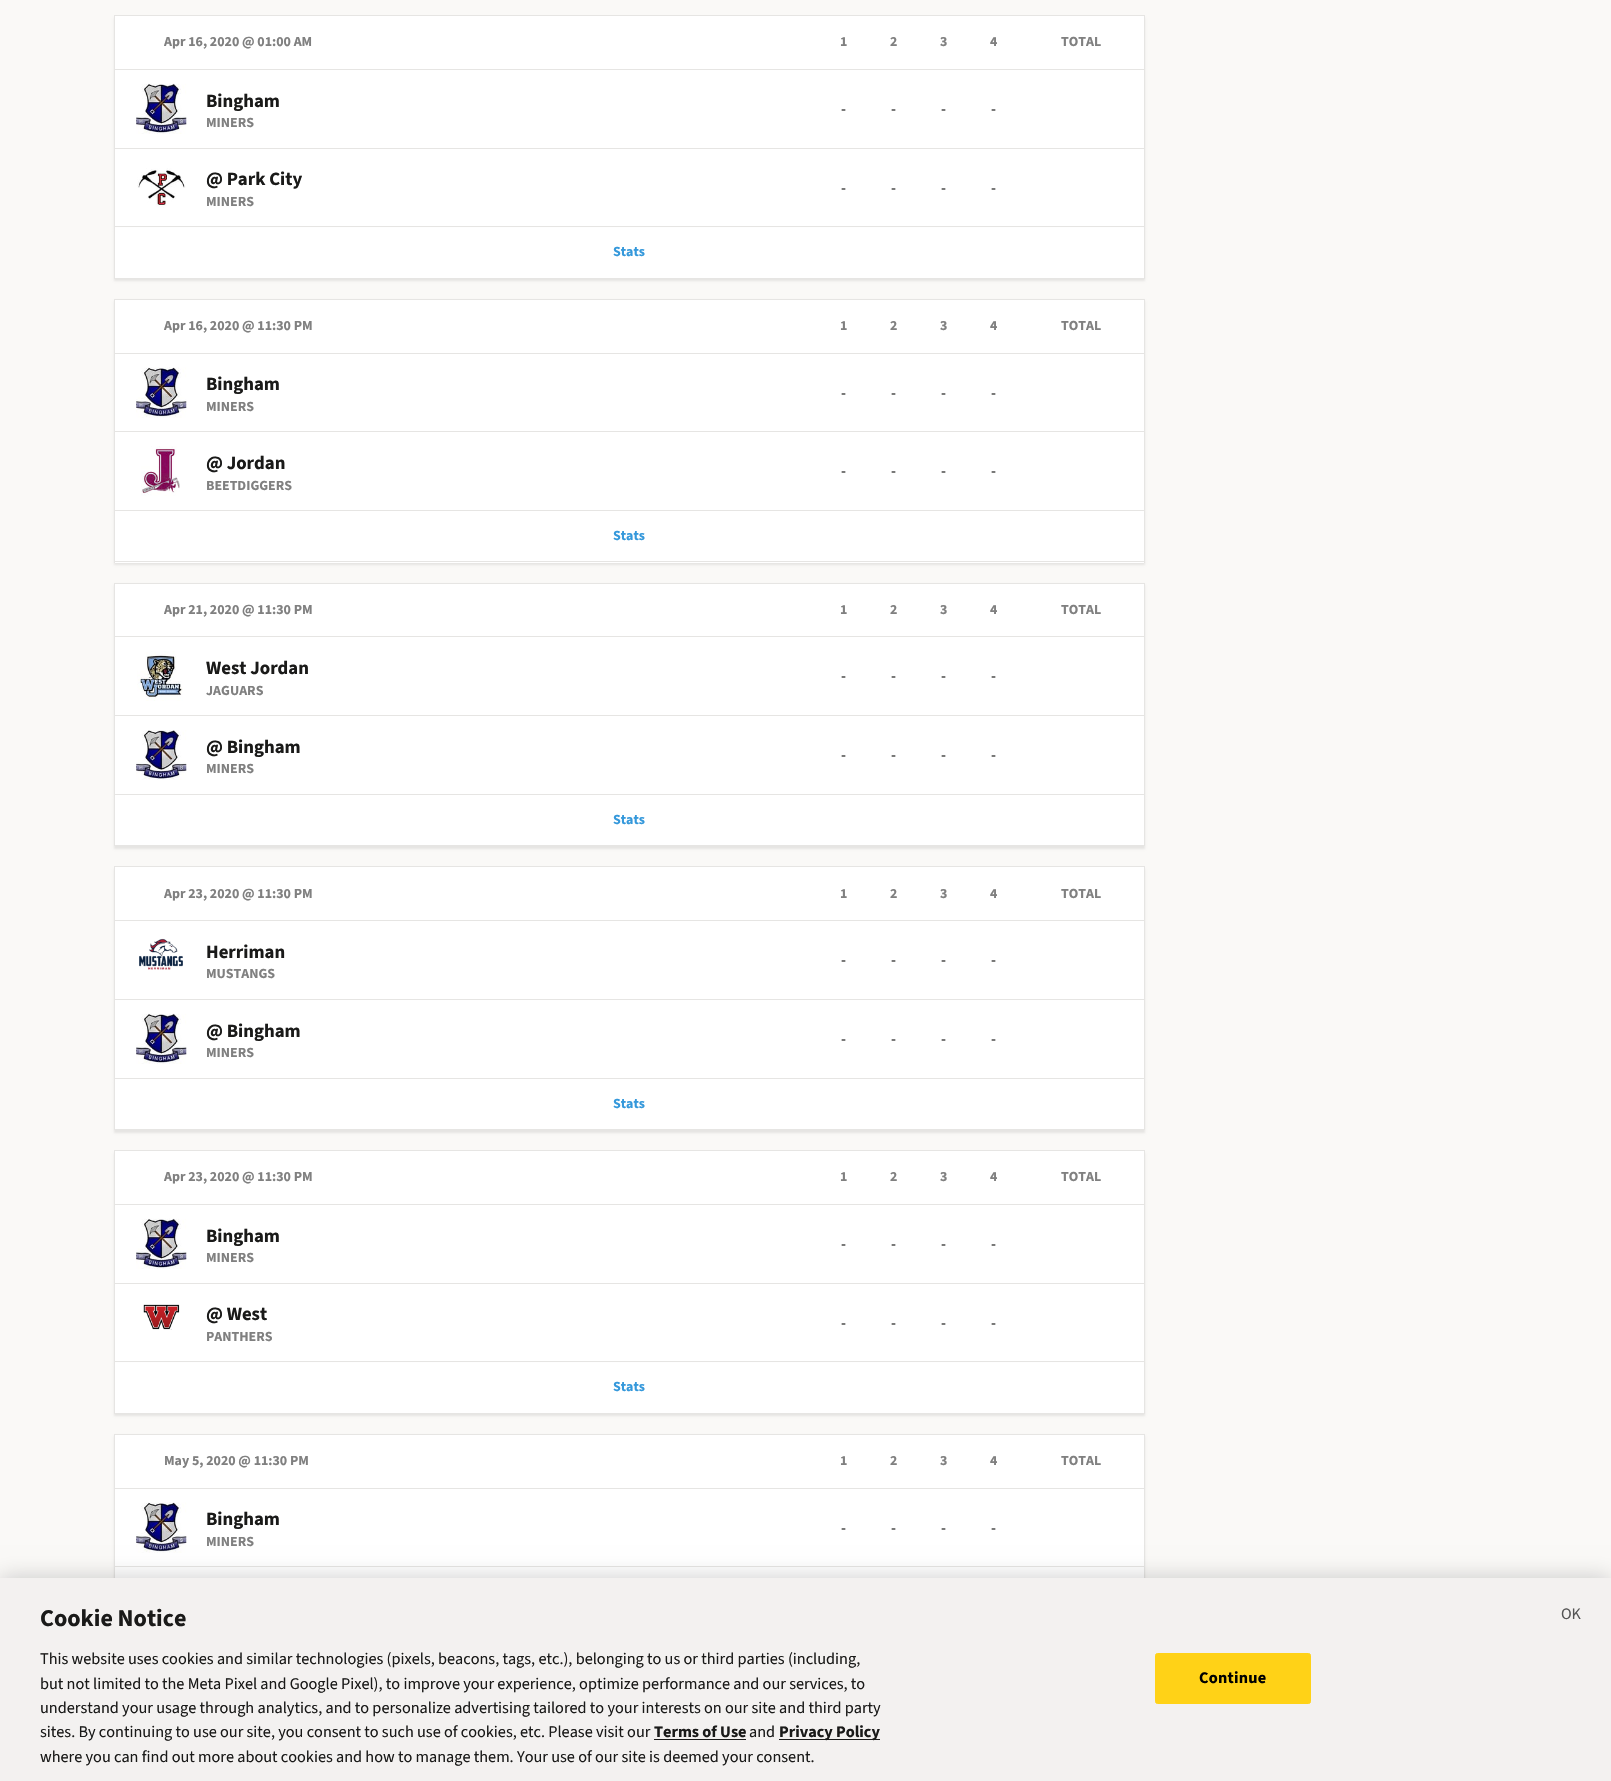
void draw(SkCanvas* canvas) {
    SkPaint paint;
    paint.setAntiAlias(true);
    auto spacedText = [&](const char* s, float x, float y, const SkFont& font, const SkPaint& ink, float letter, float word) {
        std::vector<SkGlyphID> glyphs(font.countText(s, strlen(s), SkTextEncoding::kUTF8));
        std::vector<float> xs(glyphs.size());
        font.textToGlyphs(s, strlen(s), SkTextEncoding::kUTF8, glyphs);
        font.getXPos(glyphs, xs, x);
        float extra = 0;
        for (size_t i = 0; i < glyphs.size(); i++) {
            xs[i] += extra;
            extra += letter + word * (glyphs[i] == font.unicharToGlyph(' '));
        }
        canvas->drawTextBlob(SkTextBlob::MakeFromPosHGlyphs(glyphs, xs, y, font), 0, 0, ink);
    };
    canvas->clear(0xFFFAF9F7);
    paint.setColor(0xFFE6E5E3);
    paint.setMaskFilter(SkMaskFilter::MakeBlur(kNormal_SkBlurStyle, 1));
    canvas->drawRect(SkRect::MakeXYWH(114, 18, 1031, 212), paint);
    paint.setMaskFilter(nullptr);
    paint.setColor(0xFFFFFFFF);
    canvas->drawRect(SkRect::MakeXYWH(115, 16, 1029, 212), paint);
    paint.setColor(0xFFE6E5E3);
    canvas->drawRect(SkRect::MakeXYWH(114, 15, 1031, 1), paint);
    canvas->drawRect(SkRect::MakeXYWH(1144, 15, 1, 213), paint);
    canvas->drawRect(SkRect::MakeXYWH(114, 226, 1031, 1), paint);
    canvas->drawRect(SkRect::MakeXYWH(114, 15, 1, 213), paint);
    canvas->drawRect(SkRect::MakeXYWH(114, 69, 1031, 1), paint);
    SkFont font1(fontMgr->matchFamilyStyle("Source Sans 3", SkFontStyle::Bold()), 13.9f);
    font1.setSubpixel(true);
    paint.setColor(0xFF808080);
    canvas->drawString("Apr 16, 2020 @ 01:00 AM", 164, 46, font1, paint);
    canvas->drawString("1", 840, 46, font1, paint);
    canvas->drawString("2", 890, 46, font1, paint);
    canvas->drawString("3", 940, 46, font1, paint);
    canvas->drawString("4", 990, 46, font1, paint);
    canvas->drawString("TOTAL", 1061, 46, font1, paint);
    paint.setColor(0xFFE6E5E3);
    canvas->drawRect(SkRect::MakeXYWH(114, 148, 1031, 1), paint);
    canvas->drawImageRect(SkImages::DeferredFromEncodedData(SkData::MakeFromFileName("img1.png")), SkRect::MakeXYWH(136, 83, 51, 51), SkSamplingOptions());
    SkFont font2(fontMgr->matchFamilyStyle("Source Sans 3", SkFontStyle::Bold()), 18.75f);
    font2.setSubpixel(true);
    paint.setColor(0xFF1A1A19);
    canvas->drawString("Bingham", 206, 107, font2, paint);
    paint.setColor(0xFF808080);
    canvas->drawString("MINERS", 206, 127, font1, paint);
    SkFont font3(fontMgr->matchFamilyStyle("Source Sans 3", SkFontStyle::Normal()), 16);
    font3.setSubpixel(true);
    paint.setColor(0xFF1A1A19);
    canvas->drawString("-", 841, 114, font3, paint);
    canvas->drawString("-", 891, 114, font3, paint);
    canvas->drawString("-", 941, 114, font3, paint);
    canvas->drawString("-", 991, 114, font3, paint);
    canvas->drawImageRect(SkImages::DeferredFromEncodedData(SkData::MakeFromFileName("img2.png")), SkRect::MakeXYWH(137, 168, 49, 40), SkSamplingOptions());
    canvas->drawString("@ Park City", 206, 185, font2, paint);
    paint.setColor(0xFF808080);
    canvas->drawString("MINERS", 206, 206, font1, paint);
    paint.setColor(0xFF1A1A19);
    canvas->drawString("-", 841, 193, font3, paint);
    canvas->drawString("-", 891, 193, font3, paint);
    canvas->drawString("-", 941, 193, font3, paint);
    canvas->drawString("-", 991, 193, font3, paint);
    paint.setColor(0xFFE6E5E3);
    paint.setMaskFilter(SkMaskFilter::MakeBlur(kNormal_SkBlurStyle, 1));
    canvas->drawRect(SkRect::MakeXYWH(114, 230, 1031, 51), paint);
    paint.setMaskFilter(nullptr);
    paint.setColor(0xFFFFFFFF);
    canvas->drawRect(SkRect::MakeXYWH(115, 228, 1029, 50), paint);
    paint.setColor(0xFFE6E5E3);
    canvas->drawRect(SkRect::MakeXYWH(1144, 228, 1, 51), paint);
    canvas->drawRect(SkRect::MakeXYWH(114, 228, 1, 51), paint);
    paint.setColor(0xFF3498DB);
    canvas->drawString("Stats", 613, 256, font1, paint);
    paint.setColor(0xFFE6E5E3);
    paint.setMaskFilter(SkMaskFilter::MakeBlur(kNormal_SkBlurStyle, 1));
    canvas->drawRect(SkRect::MakeXYWH(114, 301, 1031, 213), paint);
    paint.setMaskFilter(nullptr);
    paint.setColor(0xFFFFFFFF);
    canvas->drawRect(SkRect::MakeXYWH(115, 300, 1029, 210), paint);
    paint.setColor(0xFFE6E5E3);
    canvas->drawRect(SkRect::MakeXYWH(114, 299, 1031, 1), paint);
    canvas->drawRect(SkRect::MakeXYWH(1144, 299, 1, 212), paint);
    canvas->drawRect(SkRect::MakeXYWH(114, 299, 1, 212), paint);
    canvas->drawRect(SkRect::MakeXYWH(114, 353, 1031, 1), paint);
    paint.setColor(0xFF808080);
    canvas->drawString("Apr 16, 2020 @ 11:30 PM", 164, 330, font1, paint);
    canvas->drawString("1", 840, 330, font1, paint);
    canvas->drawString("2", 890, 330, font1, paint);
    canvas->drawString("3", 940, 330, font1, paint);
    canvas->drawString("4", 990, 330, font1, paint);
    canvas->drawString("TOTAL", 1061, 330, font1, paint);
    paint.setColor(0xFFE6E5E3);
    canvas->drawRect(SkRect::MakeXYWH(114, 431, 1031, 1), paint);
    canvas->drawImageRect(SkImages::DeferredFromEncodedData(SkData::MakeFromFileName("img3.png")), SkRect::MakeXYWH(136, 367, 51, 51), SkSamplingOptions());
    paint.setColor(0xFF1A1A19);
    canvas->drawString("Bingham", 206, 390, font2, paint);
    paint.setColor(0xFF808080);
    canvas->drawString("MINERS", 206, 411, font1, paint);
    paint.setColor(0xFF1A1A19);
    canvas->drawString("-", 841, 398, font3, paint);
    canvas->drawString("-", 891, 398, font3, paint);
    canvas->drawString("-", 941, 398, font3, paint);
    canvas->drawString("-", 991, 398, font3, paint);
    canvas->drawImageRect(SkImages::DeferredFromEncodedData(SkData::MakeFromFileName("img4.png")), SkRect::MakeXYWH(141, 446, 39, 50), SkSamplingOptions());
    canvas->drawString("@ Jordan", 206, 469, font2, paint);
    paint.setColor(0xFF808080);
    canvas->drawString("BEETDIGGERS", 206, 490, font1, paint);
    paint.setColor(0xFF1A1A19);
    canvas->drawString("-", 841, 476, font3, paint);
    canvas->drawString("-", 891, 476, font3, paint);
    canvas->drawString("-", 941, 476, font3, paint);
    canvas->drawString("-", 991, 476, font3, paint);
    paint.setColor(0xFFE6E5E3);
    paint.setMaskFilter(SkMaskFilter::MakeBlur(kNormal_SkBlurStyle, 1));
    canvas->drawRect(SkRect::MakeXYWH(114, 514, 1031, 51), paint);
    paint.setMaskFilter(nullptr);
    paint.setColor(0xFFFFFFFF);
    canvas->drawRect(SkRect::MakeXYWH(115, 511, 1029, 52), paint);
    paint.setColor(0xFFE6E5E3);
    canvas->drawRect(SkRect::MakeXYWH(1144, 511, 1, 52), paint);
    canvas->drawRect(SkRect::MakeXYWH(114, 561, 1031, 1), paint);
    canvas->drawRect(SkRect::MakeXYWH(114, 511, 1, 52), paint);
    paint.setColor(0xFF3498DB);
    canvas->drawString("Stats", 613, 540, font1, paint);
    paint.setColor(0xFFE6E5E3);
    paint.setMaskFilter(SkMaskFilter::MakeBlur(kNormal_SkBlurStyle, 1));
    canvas->drawRect(SkRect::MakeXYWH(114, 585, 1031, 213), paint);
    paint.setMaskFilter(nullptr);
    paint.setColor(0xFFFFFFFF);
    canvas->drawRect(SkRect::MakeXYWH(115, 584, 1029, 210), paint);
    paint.setColor(0xFFE6E5E3);
    canvas->drawRect(SkRect::MakeXYWH(114, 583, 1031, 1), paint);
    canvas->drawRect(SkRect::MakeXYWH(1144, 583, 1, 212), paint);
    canvas->drawRect(SkRect::MakeXYWH(114, 583, 1, 212), paint);
    canvas->drawRect(SkRect::MakeXYWH(114, 636, 1031, 1), paint);
    paint.setColor(0xFF808080);
    canvas->drawString("Apr 21, 2020 @ 11:30 PM", 164, 614, font1, paint);
    canvas->drawString("1", 840, 614, font1, paint);
    canvas->drawString("2", 890, 614, font1, paint);
    canvas->drawString("3", 940, 614, font1, paint);
    canvas->drawString("4", 990, 614, font1, paint);
    canvas->drawString("TOTAL", 1061, 614, font1, paint);
    paint.setColor(0xFFE6E5E3);
    canvas->drawRect(SkRect::MakeXYWH(114, 715, 1031, 1), paint);
    canvas->drawImageRect(SkImages::DeferredFromEncodedData(SkData::MakeFromFileName("img5.png")), SkRect::MakeXYWH(137, 651, 46, 50), SkSamplingOptions());
    paint.setColor(0xFF1A1A19);
    canvas->drawString("West Jordan", 206, 674, font2, paint);
    paint.setColor(0xFF808080);
    canvas->drawString("JAGUARS", 206, 695, font1, paint);
    paint.setColor(0xFF1A1A19);
    canvas->drawString("-", 841, 681, font3, paint);
    canvas->drawString("-", 891, 681, font3, paint);
    canvas->drawString("-", 941, 681, font3, paint);
    canvas->drawString("-", 991, 681, font3, paint);
    canvas->drawImageRect(SkImages::DeferredFromEncodedData(SkData::MakeFromFileName("img6.png")), SkRect::MakeXYWH(136, 730, 51, 50), SkSamplingOptions());
    canvas->drawString("@ Bingham", 206, 753, font2, paint);
    paint.setColor(0xFF808080);
    canvas->drawString("MINERS", 206, 773, font1, paint);
    paint.setColor(0xFF1A1A19);
    canvas->drawString("-", 841, 760, font3, paint);
    canvas->drawString("-", 891, 760, font3, paint);
    canvas->drawString("-", 941, 760, font3, paint);
    canvas->drawString("-", 991, 760, font3, paint);
    paint.setColor(0xFFE6E5E3);
    paint.setMaskFilter(SkMaskFilter::MakeBlur(kNormal_SkBlurStyle, 1));
    canvas->drawRect(SkRect::MakeXYWH(114, 798, 1031, 51), paint);
    paint.setMaskFilter(nullptr);
    paint.setColor(0xFFFFFFFF);
    canvas->drawRect(SkRect::MakeXYWH(115, 795, 1029, 50), paint);
    paint.setColor(0xFFE6E5E3);
    canvas->drawRect(SkRect::MakeXYWH(1144, 795, 1, 51), paint);
    canvas->drawRect(SkRect::MakeXYWH(114, 795, 1, 51), paint);
    paint.setColor(0xFF3498DB);
    canvas->drawString("Stats", 613, 824, font1, paint);
    paint.setColor(0xFFE6E5E3);
    paint.setMaskFilter(SkMaskFilter::MakeBlur(kNormal_SkBlurStyle, 1));
    canvas->drawRect(SkRect::MakeXYWH(114, 869, 1031, 212), paint);
    paint.setMaskFilter(nullptr);
    paint.setColor(0xFFFFFFFF);
    canvas->drawRect(SkRect::MakeXYWH(115, 867, 1029, 211), paint);
    paint.setColor(0xFFE6E5E3);
    canvas->drawRect(SkRect::MakeXYWH(114, 866, 1031, 1), paint);
    canvas->drawRect(SkRect::MakeXYWH(1144, 866, 1, 213), paint);
    canvas->drawRect(SkRect::MakeXYWH(114, 866, 1, 213), paint);
    canvas->drawRect(SkRect::MakeXYWH(114, 920, 1031, 1), paint);
    paint.setColor(0xFF808080);
    canvas->drawString("Apr 23, 2020 @ 11:30 PM", 164, 898, font1, paint);
    canvas->drawString("1", 840, 898, font1, paint);
    canvas->drawString("2", 890, 898, font1, paint);
    canvas->drawString("3", 940, 898, font1, paint);
    canvas->drawString("4", 990, 898, font1, paint);
    canvas->drawString("TOTAL", 1061, 898, font1, paint);
    paint.setColor(0xFFE6E5E3);
    canvas->drawRect(SkRect::MakeXYWH(114, 999, 1031, 1), paint);
    canvas->drawImageRect(SkImages::DeferredFromEncodedData(SkData::MakeFromFileName("img7.png")), SkRect::MakeXYWH(139, 938, 44, 32), SkSamplingOptions());
    paint.setColor(0xFF1A1A19);
    canvas->drawString("Herriman", 206, 958, font2, paint);
    paint.setColor(0xFF808080);
    canvas->drawString("MUSTANGS", 206, 978, font1, paint);
    paint.setColor(0xFF1A1A19);
    canvas->drawString("-", 841, 965, font3, paint);
    canvas->drawString("-", 891, 965, font3, paint);
    canvas->drawString("-", 941, 965, font3, paint);
    canvas->drawString("-", 991, 965, font3, paint);
    canvas->drawImageRect(SkImages::DeferredFromEncodedData(SkData::MakeFromFileName("img1.png")), SkRect::MakeXYWH(136, 1013, 51, 51), SkSamplingOptions());
    canvas->drawString("@ Bingham", 206, 1037, font2, paint);
    paint.setColor(0xFF808080);
    canvas->drawString("MINERS", 206, 1057, font1, paint);
    paint.setColor(0xFF1A1A19);
    canvas->drawString("-", 841, 1044, font3, paint);
    canvas->drawString("-", 891, 1044, font3, paint);
    canvas->drawString("-", 941, 1044, font3, paint);
    canvas->drawString("-", 991, 1044, font3, paint);
    paint.setColor(0xFFE6E5E3);
    paint.setMaskFilter(SkMaskFilter::MakeBlur(kNormal_SkBlurStyle, 1));
    canvas->drawRect(SkRect::MakeXYWH(114, 1081, 1031, 52), paint);
    paint.setMaskFilter(nullptr);
    paint.setColor(0xFFFFFFFF);
    canvas->drawRect(SkRect::MakeXYWH(115, 1079, 1029, 50), paint);
    paint.setColor(0xFFE6E5E3);
    canvas->drawRect(SkRect::MakeXYWH(1144, 1079, 1, 51), paint);
    canvas->drawRect(SkRect::MakeXYWH(114, 1079, 1, 51), paint);
    paint.setColor(0xFF3498DB);
    canvas->drawString("Stats", 613, 1108, font1, paint);
    paint.setColor(0xFFE6E5E3);
    paint.setMaskFilter(SkMaskFilter::MakeBlur(kNormal_SkBlurStyle, 1));
    canvas->drawRect(SkRect::MakeXYWH(114, 1153, 1031, 212), paint);
    paint.setMaskFilter(nullptr);
    paint.setColor(0xFFFFFFFF);
    canvas->drawRect(SkRect::MakeXYWH(115, 1151, 1029, 212), paint);
    paint.setColor(0xFFE6E5E3);
    canvas->drawRect(SkRect::MakeXYWH(114, 1150, 1031, 1), paint);
    canvas->drawRect(SkRect::MakeXYWH(1144, 1150, 1, 213), paint);
    canvas->drawRect(SkRect::MakeXYWH(114, 1361, 1031, 1), paint);
    canvas->drawRect(SkRect::MakeXYWH(114, 1150, 1, 213), paint);
    canvas->drawRect(SkRect::MakeXYWH(114, 1204, 1031, 1), paint);
    paint.setColor(0xFF808080);
    canvas->drawString("Apr 23, 2020 @ 11:30 PM", 164, 1181, font1, paint);
    canvas->drawString("1", 840, 1181, font1, paint);
    canvas->drawString("2", 890, 1181, font1, paint);
    canvas->drawString("3", 940, 1181, font1, paint);
    canvas->drawString("4", 990, 1181, font1, paint);
    canvas->drawString("TOTAL", 1061, 1181, font1, paint);
    paint.setColor(0xFFE6E5E3);
    canvas->drawRect(SkRect::MakeXYWH(114, 1283, 1031, 1), paint);
    canvas->drawImageRect(SkImages::DeferredFromEncodedData(SkData::MakeFromFileName("img1.png")), SkRect::MakeXYWH(136, 1218, 51, 51), SkSamplingOptions());
    paint.setColor(0xFF1A1A19);
    canvas->drawString("Bingham", 206, 1242, font2, paint);
    paint.setColor(0xFF808080);
    canvas->drawString("MINERS", 206, 1262, font1, paint);
    paint.setColor(0xFF1A1A19);
    canvas->drawString("-", 841, 1249, font3, paint);
    canvas->drawString("-", 891, 1249, font3, paint);
    canvas->drawString("-", 941, 1249, font3, paint);
    canvas->drawString("-", 991, 1249, font3, paint);
    canvas->drawImageRect(SkImages::DeferredFromEncodedData(SkData::MakeFromFileName("img8.png")), SkRect::MakeXYWH(143, 1304, 37, 26), SkSamplingOptions());
    canvas->drawString("@ West", 206, 1320, font2, paint);
    paint.setColor(0xFF808080);
    canvas->drawString("PANTHERS", 206, 1341, font1, paint);
    paint.setColor(0xFF1A1A19);
    canvas->drawString("-", 841, 1328, font3, paint);
    canvas->drawString("-", 891, 1328, font3, paint);
    canvas->drawString("-", 941, 1328, font3, paint);
    canvas->drawString("-", 991, 1328, font3, paint);
    paint.setColor(0xFFE6E5E3);
    paint.setMaskFilter(SkMaskFilter::MakeBlur(kNormal_SkBlurStyle, 1));
    canvas->drawRect(SkRect::MakeXYWH(114, 1365, 1031, 51), paint);
    paint.setMaskFilter(nullptr);
    paint.setColor(0xFFFFFFFF);
    canvas->drawRect(SkRect::MakeXYWH(115, 1363, 1029, 50), paint);
    paint.setColor(0xFFE6E5E3);
    canvas->drawRect(SkRect::MakeXYWH(1144, 1363, 1, 51), paint);
    canvas->drawRect(SkRect::MakeXYWH(114, 1363, 1, 51), paint);
    paint.setColor(0xFF3498DB);
    canvas->drawString("Stats", 613, 1391, font1, paint);
    paint.setColor(0xFFE6E5E3);
    paint.setMaskFilter(SkMaskFilter::MakeBlur(kNormal_SkBlurStyle, 1));
    canvas->drawRect(SkRect::MakeXYWH(114, 1436, 1031, 213), paint);
    paint.setMaskFilter(nullptr);
    paint.setColor(0xFFFFFFFF);
    canvas->drawRect(SkRect::MakeXYWH(115, 1435, 1029, 143), paint);
    paint.setColor(0xFFE6E5E3);
    canvas->drawRect(SkRect::MakeXYWH(114, 1434, 1031, 1), paint);
    canvas->drawRect(SkRect::MakeXYWH(1144, 1434, 1, 144), paint);
    canvas->drawRect(SkRect::MakeXYWH(114, 1434, 1, 144), paint);
    canvas->drawRect(SkRect::MakeXYWH(114, 1488, 1031, 1), paint);
    paint.setColor(0xFF808080);
    canvas->drawString("May 5, 2020 @ 11:30 PM", 164, 1465, font1, paint);
    canvas->drawString("1", 840, 1465, font1, paint);
    canvas->drawString("2", 890, 1465, font1, paint);
    canvas->drawString("3", 940, 1465, font1, paint);
    canvas->drawString("4", 990, 1465, font1, paint);
    canvas->drawString("TOTAL", 1061, 1465, font1, paint);
    paint.setColor(0xFFE6E5E3);
    canvas->drawRect(SkRect::MakeXYWH(114, 1566, 1031, 1), paint);
    canvas->drawImageRect(SkImages::DeferredFromEncodedData(SkData::MakeFromFileName("img3.png")), SkRect::MakeXYWH(136, 1502, 51, 51), SkSamplingOptions());
    paint.setColor(0xFF1A1A19);
    canvas->drawString("Bingham", 206, 1525, font2, paint);
    paint.setColor(0xFF808080);
    canvas->drawString("MINERS", 206, 1546, font1, paint);
    paint.setColor(0xFF1A1A19);
    canvas->drawString("-", 841, 1533, font3, paint);
    canvas->drawString("-", 891, 1533, font3, paint);
    canvas->drawString("-", 941, 1533, font3, paint);
    canvas->drawString("-", 991, 1533, font3, paint);
    paint.setColor(0x33000000);
    paint.setMaskFilter(SkMaskFilter::MakeBlur(kNormal_SkBlurStyle, 11));
    canvas->drawRect(SkRect::MakeXYWH(0, 1578, 1611, 203), paint);
    paint.setMaskFilter(nullptr);
    paint.setColor(0xFFF3F1F0);
    canvas->drawRect(SkRect::MakeXYWH(0, 1578, 1611, 203), paint);
    SkFont font4(fontMgr->matchFamilyStyle("Source Sans 3", SkFontStyle::Bold()), 24);
    font4.setSubpixel(true);
    paint.setColor(0xFF1A1A19);
    canvas->drawString("Cookie Notice", 40, 1626, font4, paint);
    SkFont font5(fontMgr->matchFamilyStyle("Source Sans 3", SkFontStyle::Normal()), 16.25f);
    font5.setSubpixel(true);
    canvas->drawString("This website uses cookies and similar technologies (pixels, beacons, tags, etc.), belonging to us or third parties (including,", 40, 1664, font5, paint);
    canvas->drawString("but not limited to the Meta Pixel and Google Pixel), to improve your experience, optimize performance and our services, to", 40, 1689, font5, paint);
    canvas->drawString("understand your usage through analytics, and to personalize advertising tailored to your interests on our site and third party", 40, 1713, font5, paint);
    canvas->drawString("sites. By continuing to use our site, you consent to such use of cookies, etc. Please visit our", 40, 1737, font5, paint);
    SkFont font6(fontMgr->matchFamilyStyle("Source Sans 3", SkFontStyle::Bold()), 16.25f);
    font6.setSubpixel(true);
    canvas->drawString("Terms of Use", 654, 1737, font6, paint);
    canvas->drawRect(SkRect::MakeXYWH(654, 1739, 92, 1), paint);
    canvas->drawString("and", 749, 1737, font5, paint);
    canvas->drawRect(SkRect::MakeXYWH(779, 1739, 101, 1), paint);
    canvas->drawString("Privacy Policy", 779, 1737, font6, paint);
    canvas->drawString("where you can find out more about cookies and how to manage them. Your use of our site is deemed your consent.", 40, 1762, font5, paint);
    paint.setColor(0xFFFFD217);
    canvas->drawRoundRect(SkRect::MakeXYWH(1155.5f, 1653.5f, 155, 50), 2, 2, paint);
    paint.setStyle(SkPaint::kStroke_Style);
    paint.setStrokeWidth(1);
    canvas->drawRoundRect(SkRect::MakeXYWH(1155.5f, 1653.5f, 155, 50), 2, 2, paint);
    paint.setStyle(SkPaint::kFill_Style);
    paint.setColor(0xFF000000);
    spacedText("Continue", 1199, 1683, font6, paint, 0.25f, 0);
    paint.setColor(0xFF555555);
    canvas->drawString("OK", 1561, 1619, font3, paint);
}
